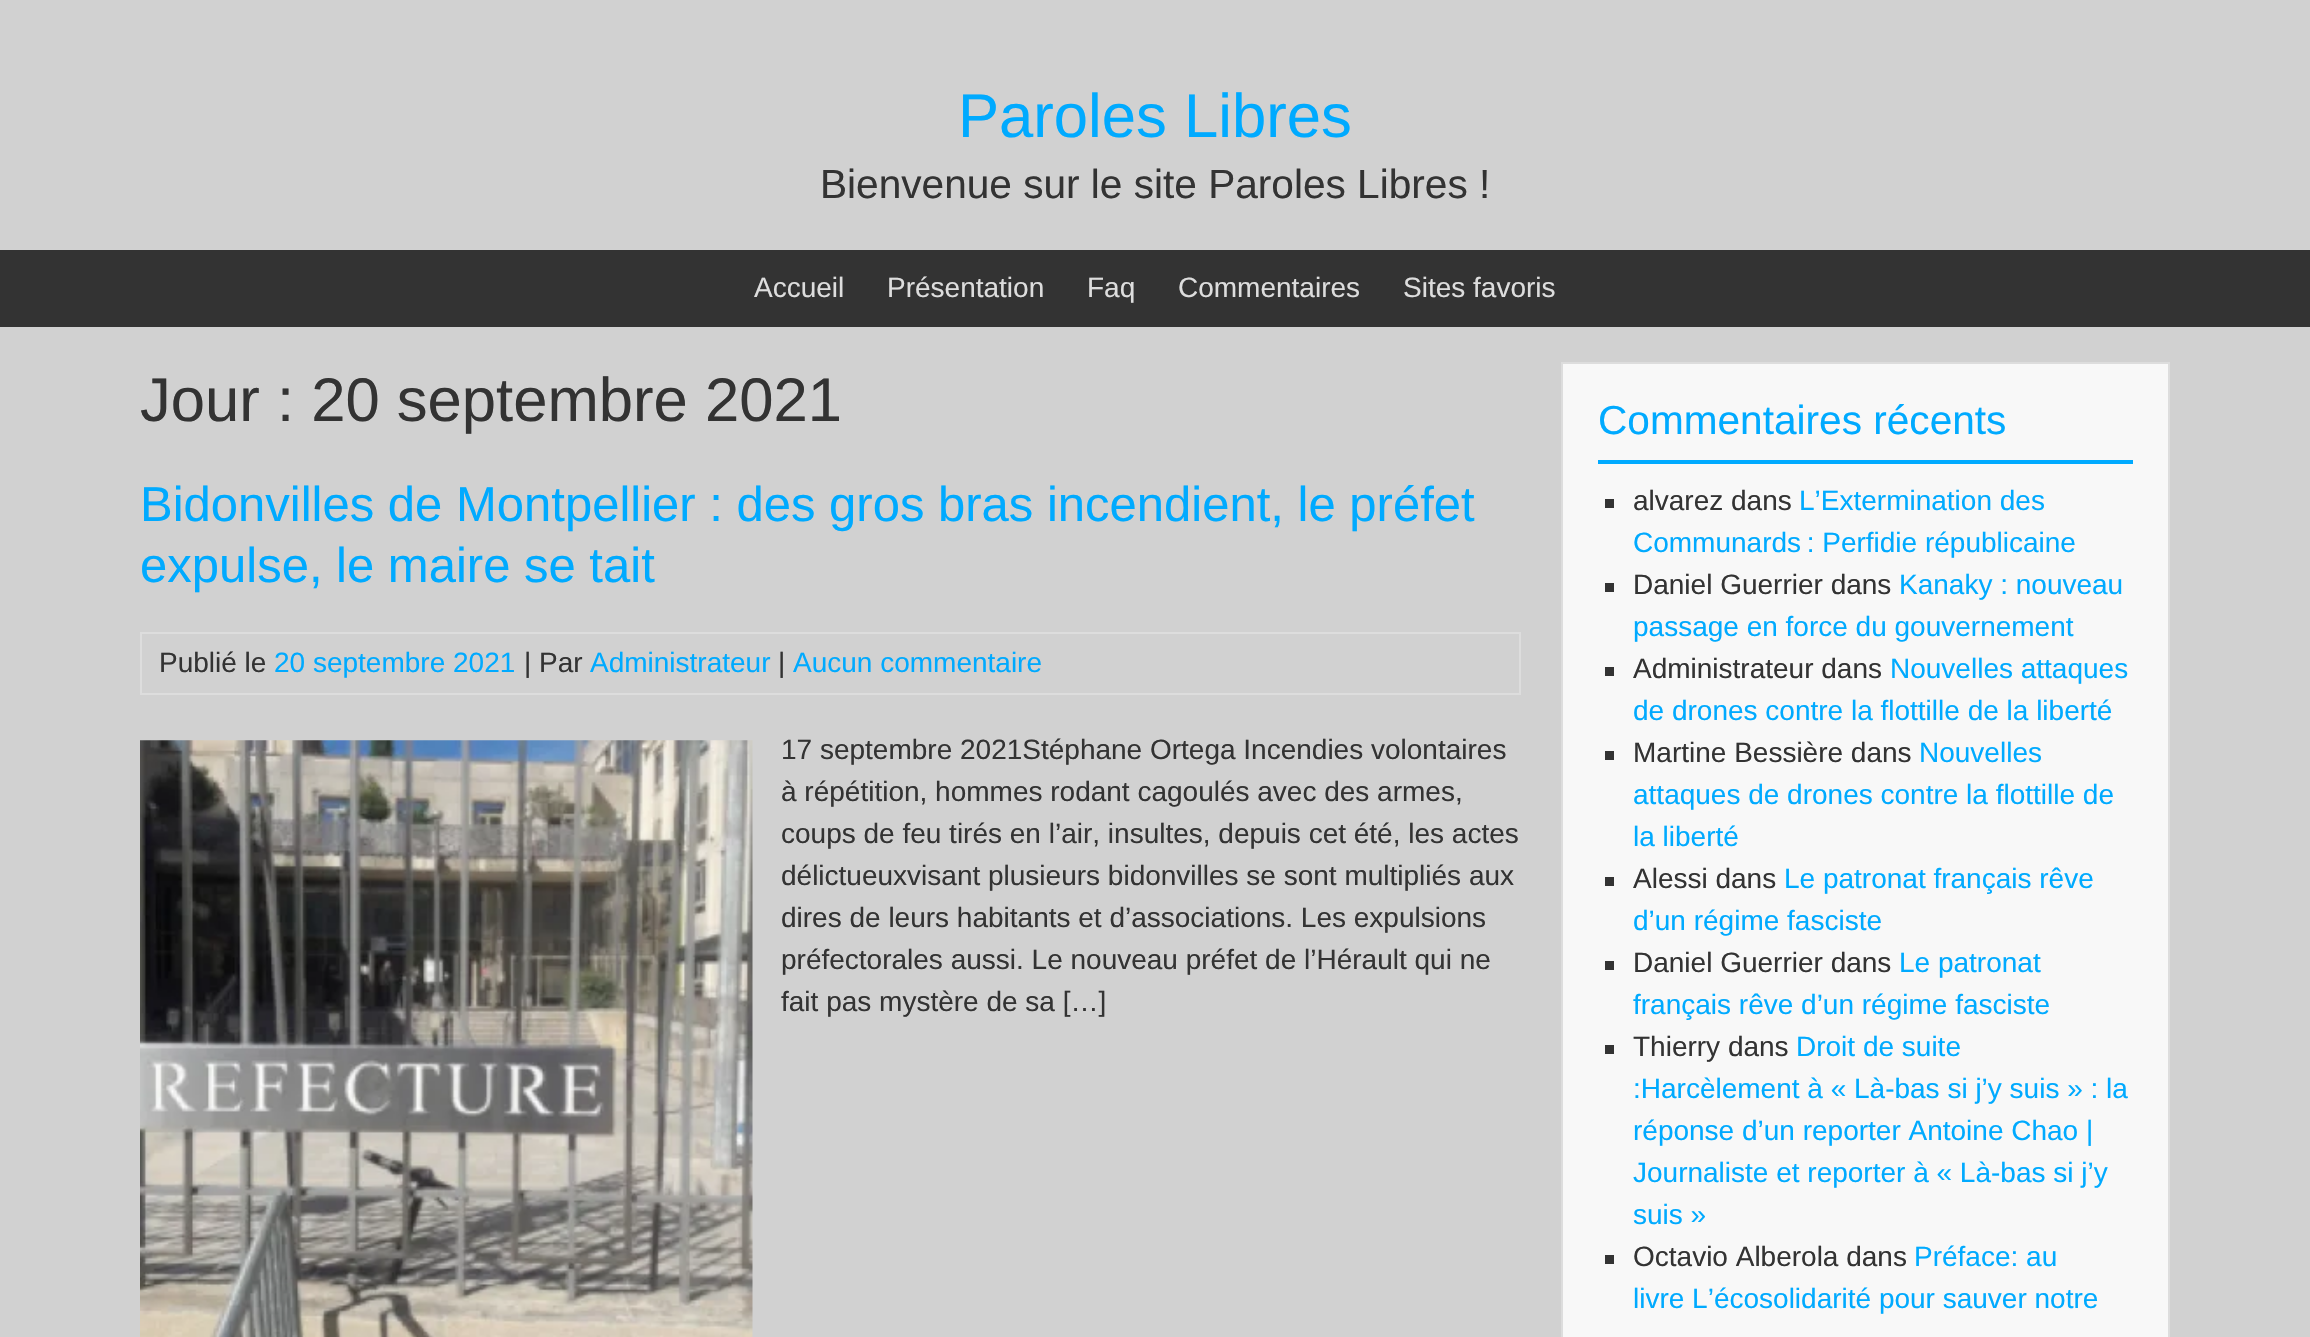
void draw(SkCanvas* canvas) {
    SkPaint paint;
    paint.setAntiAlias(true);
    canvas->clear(0xFFD1D1D1);
    SkFont font1(fontMgr->matchFamilyStyle("Liberation Sans", SkFontStyle::Normal()), 61.6f);
    font1.setSubpixel(true);
    paint.setColor(0xFF00AAFF);
    canvas->drawString("Paroles Libres", 958, 137, font1, paint);
    SkFont font2(fontMgr->matchFamilyStyle("Liberation Sans", SkFontStyle::Normal()), 40.6f);
    font2.setSubpixel(true);
    paint.setColor(0xFF333333);
    canvas->drawString("Bienvenue sur le site Paroles Libres !", 820, 198, font2, paint);
    canvas->drawRect(SkRect::MakeXYWH(0, 250, 2310, 77), paint);
    SkFont font3(fontMgr->matchFamilyStyle("Liberation Sans", SkFontStyle::Normal()), 28);
    font3.setSubpixel(true);
    paint.setColor(0xFFDDDDDD);
    canvas->drawString("Accueil", 754, 297, font3, paint);
    canvas->drawString("Présentation", 887, 297, font3, paint);
    canvas->drawString("Faq", 1087, 297, font3, paint);
    canvas->drawString("Commentaires", 1178, 297, font3, paint);
    canvas->drawString("Sites favoris", 1403, 297, font3, paint);
    paint.setColor(0xFF333333);
    canvas->drawString("Jour : 20 septembre 2021", 140, 421, font1, paint);
    SkFont font4(fontMgr->matchFamilyStyle("Liberation Sans", SkFontStyle::Normal()), 49);
    font4.setSubpixel(true);
    paint.setColor(0xFF00AAFF);
    canvas->drawString("Bidonvilles de Montpellier : des gros bras incendient, le préfet", 140, 521, font4, paint);
    canvas->drawString("expulse, le maire se tait", 140, 582, font4, paint);
    paint.setStyle(SkPaint::kStroke_Style);
    paint.setStrokeWidth(2);
    paint.setColor(0xFFDDDDDD);
    canvas->drawRect(SkRect::MakeXYWH(141, 633, 1379, 61), paint);
    paint.setStyle(SkPaint::kFill_Style);
    paint.setColor(0xFF333333);
    canvas->drawString("Publié le", 159, 672, font3, paint);
    paint.setColor(0xFF00AAFF);
    canvas->drawString("20 septembre 2021", 274, 672, font3, paint);
    paint.setColor(0xFF333333);
    canvas->drawString("| Par", 524, 672, font3, paint);
    paint.setColor(0xFF00AAFF);
    canvas->drawString("Administrateur", 590, 672, font3, paint);
    paint.setColor(0xFF333333);
    canvas->drawString("|", 778, 672, font3, paint);
    paint.setColor(0xFF00AAFF);
    canvas->drawString("Aucun commentaire", 793, 672, font3, paint);
    canvas->drawImageRect(SkImages::DeferredFromEncodedData(SkData::MakeFromFileName("img1.png")), SkRect::MakeXYWH(140, 740, 613, 597), SkSamplingOptions());
    paint.setColor(0xFF333333);
    canvas->drawString("17 septembre 2021Stéphane Ortega Incendies volontaires", 781, 759, font3, paint);
    canvas->drawString("à répétition, hommes rodant cagoulés avec des armes,", 781, 801, font3, paint);
    canvas->drawString("coups de feu tirés en l’air, insultes, depuis cet été, les actes", 781, 843, font3, paint);
    canvas->drawString("délictueuxvisant plusieurs bidonvilles se sont multipliés aux", 781, 885, font3, paint);
    canvas->drawString("dires de leurs habitants et d’associations. Les expulsions", 781, 927, font3, paint);
    canvas->drawString("préfectorales aussi. Le nouveau préfet de l’Hérault qui ne", 781, 969, font3, paint);
    canvas->drawString("fait pas mystère de sa […]", 781, 1011, font3, paint);
    paint.setColor(0xFFF8F8F8);
    canvas->drawRect(SkRect::MakeXYWH(1562, 363, 607, 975), paint);
    paint.setStyle(SkPaint::kStroke_Style);
    paint.setColor(0xFFDDDDDD);
    canvas->drawRect(SkRect::MakeXYWH(1562, 363, 607, 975), paint);
    paint.setStyle(SkPaint::kFill_Style);
    paint.setColor(0xFF00AAFF);
    canvas->drawRect(SkRect::MakeXYWH(1598, 460, 535, 4), paint);
    canvas->drawString("Commentaires récents", 1598, 434, font2, paint);
    paint.setColor(0xFF333333);
    canvas->drawRect(SkRect::MakeXYWH(1605, 499, 9, 9), paint);
    canvas->drawString("alvarez dans", 1633, 510, font3, paint);
    paint.setColor(0xFF00AAFF);
    canvas->drawString("L’Extermination des", 1799, 510, font3, paint);
    canvas->drawString("Communards : Perfidie républicaine", 1633, 552, font3, paint);
    paint.setColor(0xFF333333);
    canvas->drawRect(SkRect::MakeXYWH(1605, 583, 9, 9), paint);
    canvas->drawString("Daniel Guerrier dans", 1633, 594, font3, paint);
    paint.setColor(0xFF00AAFF);
    canvas->drawString("Kanaky : nouveau", 1899, 594, font3, paint);
    canvas->drawString("passage en force du gouvernement", 1633, 636, font3, paint);
    paint.setColor(0xFF333333);
    canvas->drawRect(SkRect::MakeXYWH(1605, 667, 9, 9), paint);
    canvas->drawString("Administrateur dans", 1633, 678, font3, paint);
    paint.setColor(0xFF00AAFF);
    canvas->drawString("Nouvelles attaques", 1890, 678, font3, paint);
    canvas->drawString("de drones contre la flottille de la liberté", 1633, 720, font3, paint);
    paint.setColor(0xFF333333);
    canvas->drawRect(SkRect::MakeXYWH(1605, 751, 9, 9), paint);
    canvas->drawString("Martine Bessière dans", 1633, 762, font3, paint);
    paint.setColor(0xFF00AAFF);
    canvas->drawString("Nouvelles", 1919, 762, font3, paint);
    canvas->drawString("attaques de drones contre la flottille de", 1633, 804, font3, paint);
    canvas->drawString("la liberté", 1633, 846, font3, paint);
    paint.setColor(0xFF333333);
    canvas->drawRect(SkRect::MakeXYWH(1605, 877, 9, 9), paint);
    canvas->drawString("Alessi dans", 1633, 888, font3, paint);
    paint.setColor(0xFF00AAFF);
    canvas->drawString("Le patronat français rêve", 1784, 888, font3, paint);
    canvas->drawString("d’un régime fasciste", 1633, 930, font3, paint);
    paint.setColor(0xFF333333);
    canvas->drawRect(SkRect::MakeXYWH(1605, 961, 9, 9), paint);
    canvas->drawString("Daniel Guerrier dans", 1633, 972, font3, paint);
    paint.setColor(0xFF00AAFF);
    canvas->drawString("Le patronat", 1899, 972, font3, paint);
    canvas->drawString("français rêve d’un régime fasciste", 1633, 1014, font3, paint);
    paint.setColor(0xFF333333);
    canvas->drawRect(SkRect::MakeXYWH(1605, 1045, 9, 9), paint);
    canvas->drawString("Thierry dans", 1633, 1056, font3, paint);
    paint.setColor(0xFF00AAFF);
    canvas->drawString("Droit de suite", 1796, 1056, font3, paint);
    canvas->drawString(":Harcèlement à « Là-bas si j’y suis » : la", 1633, 1098, font3, paint);
    canvas->drawString("réponse d’un reporter Antoine Chao |", 1633, 1140, font3, paint);
    canvas->drawString("Journaliste et reporter à « Là-bas si j’y", 1633, 1182, font3, paint);
    canvas->drawString("suis »", 1633, 1224, font3, paint);
    paint.setColor(0xFF333333);
    canvas->drawRect(SkRect::MakeXYWH(1605, 1255, 9, 9), paint);
    canvas->drawString("Octavio Alberola dans", 1633, 1266, font3, paint);
    paint.setColor(0xFF00AAFF);
    canvas->drawString("Préface: au", 1914, 1266, font3, paint);
    canvas->drawString("livre L’écosolidarité pour sauver notre", 1633, 1308, font3, paint);
}
